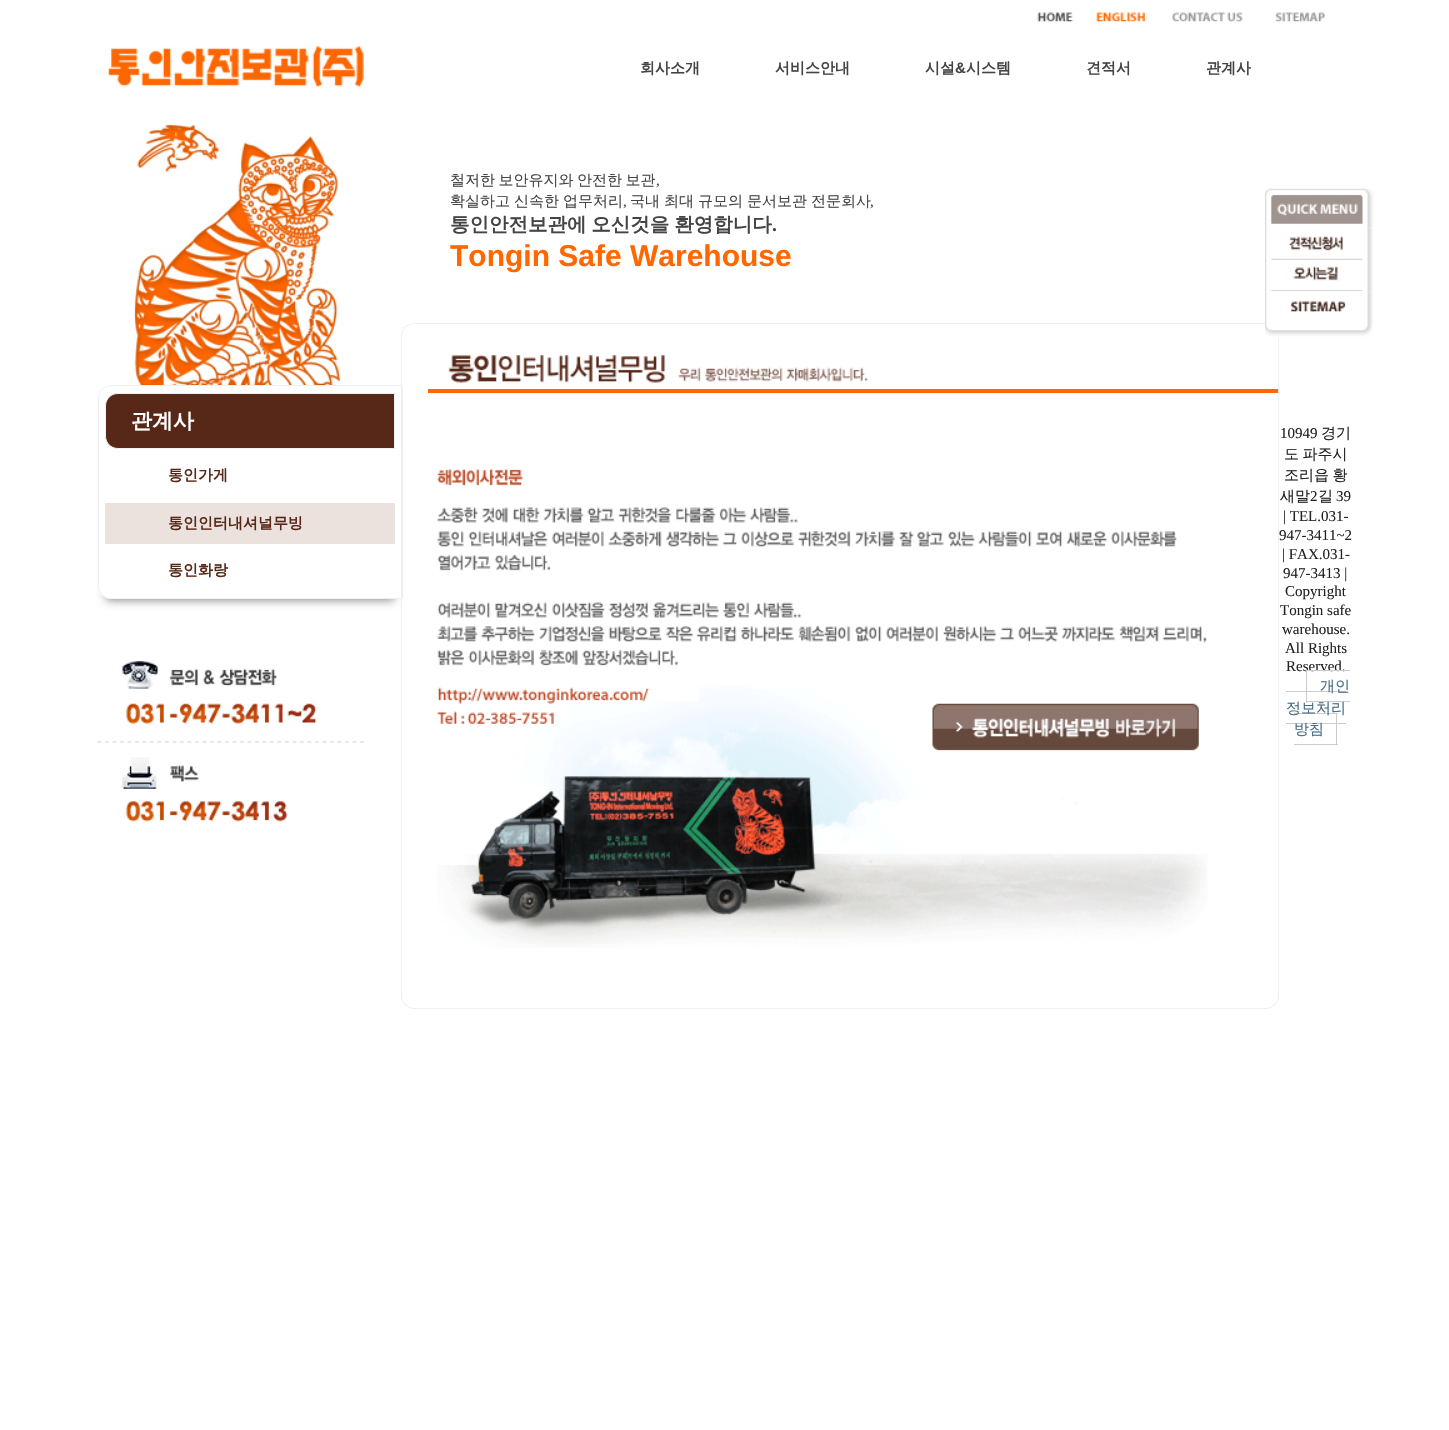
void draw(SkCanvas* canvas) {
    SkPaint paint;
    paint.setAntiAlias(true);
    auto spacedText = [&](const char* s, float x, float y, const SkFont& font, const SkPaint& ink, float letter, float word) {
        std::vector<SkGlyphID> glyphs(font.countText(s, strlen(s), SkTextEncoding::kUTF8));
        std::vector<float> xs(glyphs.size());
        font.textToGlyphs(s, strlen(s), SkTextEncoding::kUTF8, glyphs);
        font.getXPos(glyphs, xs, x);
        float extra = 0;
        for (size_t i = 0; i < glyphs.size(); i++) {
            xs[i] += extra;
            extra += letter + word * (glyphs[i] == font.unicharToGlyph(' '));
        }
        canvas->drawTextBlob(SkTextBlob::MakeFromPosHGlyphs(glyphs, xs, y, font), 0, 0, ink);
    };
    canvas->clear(0xFFFFFFFF);
    canvas->drawImageRect(SkImages::DeferredFromEncodedData(SkData::MakeFromFileName("img1.png")), SkRect::MakeXYWH(1037, 12, 36, 10), SkSamplingOptions());
    canvas->drawImageRect(SkImages::DeferredFromEncodedData(SkData::MakeFromFileName("img2.png")), SkRect::MakeXYWH(1096, 12, 49, 10), SkSamplingOptions());
    canvas->drawImageRect(SkImages::DeferredFromEncodedData(SkData::MakeFromFileName("img3.png")), SkRect::MakeXYWH(1172, 12, 71, 10), SkSamplingOptions());
    canvas->drawImageRect(SkImages::DeferredFromEncodedData(SkData::MakeFromFileName("img4.png")), SkRect::MakeXYWH(1275, 12, 50, 10), SkSamplingOptions());
    canvas->drawImageRect(SkImages::DeferredFromEncodedData(SkData::MakeFromFileName("img5.png")), SkRect::MakeXYWH(108, 46, 256, 41), SkSamplingOptions());
    SkFont font1(fontMgr->matchFamilyStyle("WenQuanYi Zen Hei", SkFontStyle::Bold()), 15);
    font1.setSubpixel(true);
    paint.setColor(0xFF444444);
    canvas->drawString("회사소개", 640, 73, font1, paint);
    canvas->drawString("서비스안내", 775, 73, font1, paint);
    canvas->drawString("시설", 925, 73, font1, paint);
    SkFont font2(fontMgr->matchFamilyStyle("Liberation Sans", SkFontStyle::Bold()), 15);
    font2.setSubpixel(true);
    canvas->drawString("&", 955, 73, font2, paint);
    canvas->drawString("시스템", 966, 73, font1, paint);
    canvas->drawString("견적서", 1086, 73, font1, paint);
    canvas->drawString("관계사", 1206, 73, font1, paint);
    canvas->drawImageRect(SkImages::DeferredFromEncodedData(SkData::MakeFromFileName("img6.png")), SkRect::MakeXYWH(134, 124, 207, 261), SkSamplingOptions());
    SkFont font3(fontMgr->matchFamilyStyle("WenQuanYi Zen Hei", SkFontStyle(500, SkFontStyle::kNormal_Width, SkFontStyle::kUpright_Slant)), 15);
    font3.setSubpixel(true);
    spacedText("철저한 보안유지와 안전한 보관", 450, 185, font3, paint, 0, -1);
    SkFont font4(fontMgr->matchFamilyStyle("Liberation Serif", SkFontStyle::Normal()), 15);
    font4.setSubpixel(true);
    canvas->drawString(",", 656, 185, font4, paint);
    spacedText("확실하고 신속한 업무처리", 450, 206, font3, paint, 0, -0.5f);
    canvas->drawString(",", 623, 206, font4, paint);
    spacedText("국내 최대 규모의 문서보관 전문회사", 630, 206, font3, paint, 0, -0.5f);
    canvas->drawString(",", 870, 206, font4, paint);
    SkFont font5(fontMgr->matchFamilyStyle("WenQuanYi Zen Hei", SkFontStyle::Bold()), 19.5f);
    font5.setSubpixel(true);
    spacedText("통인안전보관에 오신것을 환영합니다", 450, 231, font5, paint, 0, -1);
    SkFont font6(fontMgr->matchFamilyStyle("Liberation Serif", SkFontStyle::Bold()), 19.5f);
    font6.setSubpixel(true);
    canvas->drawString(".", 772, 231, font6, paint);
    SkFont font7(fontMgr->matchFamilyStyle("Liberation Sans", SkFontStyle::Bold()), 30);
    font7.setSubpixel(true);
    paint.setColor(0xFFFF6700);
    canvas->drawString("Tongin Safe Warehouse", 450, 266, font7, paint);
    canvas->drawImageRect(SkImages::DeferredFromEncodedData(SkData::MakeFromFileName("img7.png")), SkRect::MakeXYWH(1265, 188, 109, 40), SkSamplingOptions());
    canvas->drawImageRect(SkImages::DeferredFromEncodedData(SkData::MakeFromFileName("img8.png")), SkRect::MakeXYWH(1265, 227, 108, 33), SkSamplingOptions());
    canvas->drawImageRect(SkImages::DeferredFromEncodedData(SkData::MakeFromFileName("img9.png")), SkRect::MakeXYWH(1265, 260, 108, 32), SkSamplingOptions());
    canvas->save();
    canvas->clipPath(SkPathBuilder(SkPathFillType::kEvenOdd).moveTo(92, 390).lineTo(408, 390).lineTo(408, 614).lineTo(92, 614).close().moveTo(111, 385).lineTo(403, 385).lineTo(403, 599).lineTo(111, 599).cubicTo(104, 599, 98, 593, 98, 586).lineTo(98, 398).cubicTo(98, 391, 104, 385, 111, 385).close().detach(), true);
    paint.setColor(0xFF999999);
    paint.setMaskFilter(SkMaskFilter::MakeBlur(kNormal_SkBlurStyle, 4));
    canvas->drawRoundRect(SkRect::MakeXYWH(105, 403, 290, 198), 5, 5, paint);
    paint.setMaskFilter(nullptr);
    canvas->restore();
    paint.setStyle(SkPaint::kStroke_Style);
    paint.setStrokeWidth(1);
    paint.setColor(0xFFEFEFEF);
    canvas->drawPath(SkPathBuilder().moveTo(111, 385.5f).lineTo(402.5f, 385.5f).lineTo(402.5f, 598.5f).lineTo(111, 598.5f).cubicTo(104, 598.5f, 98.5f, 593, 98.5f, 586).lineTo(98.5f, 398).cubicTo(98.5f, 391, 104, 385.5f, 111, 385.5f).close().detach(), paint);
    canvas->drawRoundRect(SkRect::MakeXYWH(401.5f, 323.5f, 877, 685), 12.5f, 12.5f, paint);
    canvas->drawImageRect(SkImages::DeferredFromEncodedData(SkData::MakeFromFileName("img10.png")), SkRect::MakeXYWH(1265, 291, 108, 47), SkSamplingOptions());
    paint.setStyle(SkPaint::kFill_Style);
    paint.setColor(0xFF572818);
    canvas->drawPath(SkPathBuilder().moveTo(118, 393.5f).lineTo(394.5f, 393.5f).lineTo(394.5f, 448.5f).lineTo(118, 448.5f).cubicTo(111, 448.5f, 105.5f, 443, 105.5f, 436).lineTo(105.5f, 406).cubicTo(105.5f, 399, 111, 393.5f, 118, 393.5f).close().detach(), paint);
    paint.setStyle(SkPaint::kStroke_Style);
    paint.setColor(0xFFEFEFEF);
    canvas->drawPath(SkPathBuilder().moveTo(118, 393.5f).lineTo(394.5f, 393.5f).lineTo(394.5f, 448.5f).lineTo(118, 448.5f).cubicTo(111, 448.5f, 105.5f, 443, 105.5f, 436).lineTo(105.5f, 406).cubicTo(105.5f, 399, 111, 393.5f, 118, 393.5f).close().detach(), paint);
    SkFont font8(fontMgr->matchFamilyStyle("WenQuanYi Zen Hei", SkFontStyle::Bold()), 21);
    font8.setSubpixel(true);
    paint.setStyle(SkPaint::kFill_Style);
    paint.setColor(0xFFFFFFFF);
    canvas->drawString("관계사", 131, 428, font8, paint);
    paint.setColor(0xFF572818);
    canvas->drawString("통인가게", 168, 480, font1, paint);
    paint.setColor(0xFFEBE1DD);
    canvas->drawRect(SkRect::MakeXYWH(105, 503, 290, 41), paint);
    paint.setColor(0xFF572818);
    canvas->drawString("통인인터내셔널무빙", 168, 528, font1, paint);
    canvas->drawString("통인화랑", 168, 575, font1, paint);
    canvas->drawImageRect(SkImages::DeferredFromEncodedData(SkData::MakeFromFileName("img11.png")), SkRect::MakeXYWH(97, 661, 267, 161), SkSamplingOptions());
    paint.setColor(0xFFFF6700);
    canvas->drawRect(SkRect::MakeXYWH(428, 389, 850, 4), paint);
    canvas->drawImageRect(SkImages::DeferredFromEncodedData(SkData::MakeFromFileName("img12.png")), SkRect::MakeXYWH(448, 354, 420, 29), SkSamplingOptions());
    canvas->drawImageRect(SkImages::DeferredFromEncodedData(SkData::MakeFromFileName("img13.png")), SkRect::MakeXYWH(437, 468, 771, 480), SkSamplingOptions());
    paint.setColor(0xFF222222);
    canvas->drawString("10949", 1280, 438, font4, paint);
    canvas->drawString("경기", 1321, 438, font3, paint);
    spacedText("도 파주시", 1284, 459, font3, paint, 0, -1);
    spacedText("조리읍 황", 1284, 480, font3, paint, 0, -1);
    canvas->drawString("새말", 1280, 501, font3, paint);
    canvas->drawString("2", 1310, 501, font4, paint);
    canvas->drawString("길", 1318, 501, font3, paint);
    canvas->drawString("39", 1336, 501, font4, paint);
    canvas->drawString("| TEL.031-", 1283, 521, font4, paint);
    canvas->drawString("947-3411~2", 1279, 540, font4, paint);
    canvas->drawString("| FAX.031-", 1282, 559, font4, paint);
    canvas->drawString("947-3413 |", 1283, 578, font4, paint);
    canvas->drawString("Copyright", 1285, 596, font4, paint);
    canvas->drawString("Tongin safe", 1280, 615, font4, paint);
    canvas->drawString("warehouse.", 1282, 634, font4, paint);
    canvas->drawString("All Rights", 1285, 653, font4, paint);
    canvas->drawString("Reserved.", 1286, 671, font4, paint);
    paint.setColor(0xFFCCCCCC);
    canvas->drawRect(SkRect::MakeXYWH(1306, 670, 44, 1), paint);
    canvas->drawRect(SkRect::MakeXYWH(1306, 701, 44, 1), paint);
    canvas->drawRect(SkRect::MakeXYWH(1306, 670, 1, 33), paint);
    canvas->drawRect(SkRect::MakeXYWH(1286, 691, 60, 1), paint);
    paint.setColor(0xFF466C8A);
    canvas->drawString("개인", 1320, 691, font3, paint);
    paint.setColor(0xFFCCCCCC);
    canvas->drawRect(SkRect::MakeXYWH(1294, 713, 44, 1), paint);
    canvas->drawRect(SkRect::MakeXYWH(1286, 723, 60, 1), paint);
    canvas->drawRect(SkRect::MakeXYWH(1336, 713, 1, 32), paint);
    paint.setColor(0xFF466C8A);
    canvas->drawString("정보처리", 1286, 713, font3, paint);
    canvas->drawString("방침", 1294, 734, font3, paint);
    paint.setColor(0xFFCCCCCC);
    canvas->drawRect(SkRect::MakeXYWH(1294, 744, 44, 1), paint);
}
